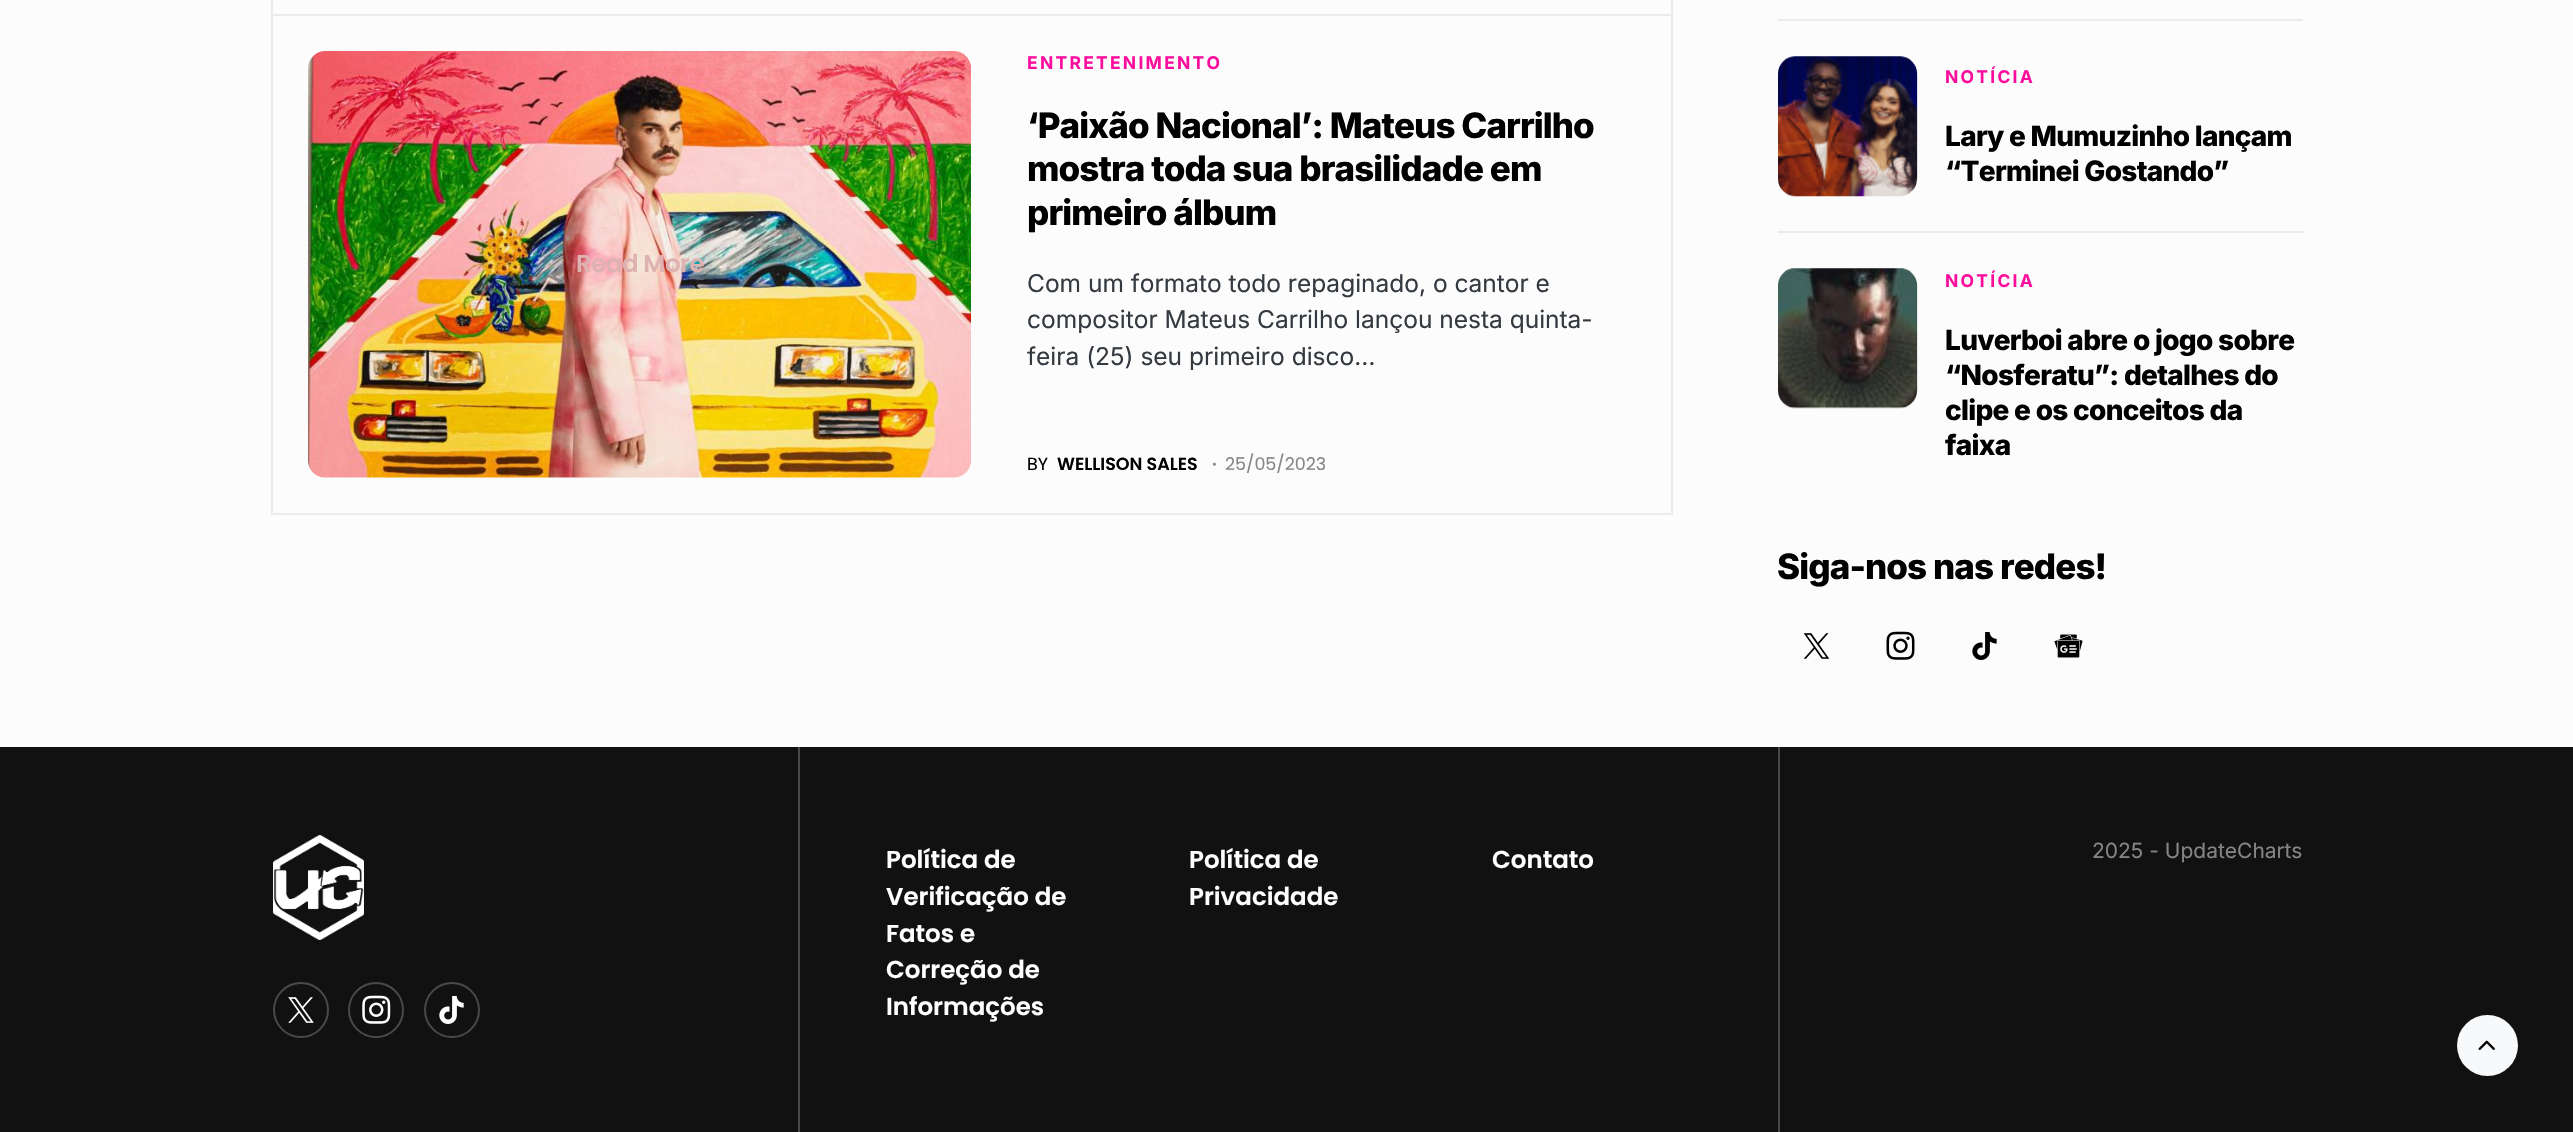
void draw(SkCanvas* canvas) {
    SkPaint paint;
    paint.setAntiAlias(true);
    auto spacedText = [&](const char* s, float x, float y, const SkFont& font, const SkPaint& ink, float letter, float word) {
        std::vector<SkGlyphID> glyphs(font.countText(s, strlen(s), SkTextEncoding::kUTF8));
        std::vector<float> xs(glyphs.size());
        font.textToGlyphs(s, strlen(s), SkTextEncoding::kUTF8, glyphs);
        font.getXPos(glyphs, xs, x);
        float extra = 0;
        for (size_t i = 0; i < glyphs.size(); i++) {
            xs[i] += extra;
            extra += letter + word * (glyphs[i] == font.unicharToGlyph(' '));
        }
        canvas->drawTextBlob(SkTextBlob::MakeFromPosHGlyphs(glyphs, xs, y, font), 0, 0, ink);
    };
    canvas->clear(0xFFFCFCFC);
    paint.setStyle(SkPaint::kStroke_Style);
    paint.setStrokeWidth(2);
    paint.setColor(0xFFE9ECEF);
    canvas->drawRect(SkRect::MakeXYWH(272, -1, 1400, 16), paint);
    canvas->drawRect(SkRect::MakeXYWH(272, 15, 1400, 499), paint);
    canvas->drawImageRect(SkImages::DeferredFromEncodedData(SkData::MakeFromFileName("img1.png")), SkRect::MakeXYWH(308, 51, 663, 427), SkSamplingOptions());
    SkFont font1(fontMgr->matchFamilyStyle("Poppins", SkFontStyle(600, SkFontStyle::kNormal_Width, SkFontStyle::kUpright_Slant)), 24.5f);
    font1.setSubpixel(true);
    paint.setStyle(SkPaint::kFill_Style);
    paint.setColor(0xFFDFB2B2);
    spacedText("Read More", 576, 272, font1, paint, -0.5f, 0);
    SkFont font2(fontMgr->matchFamilyStyle("Inter", SkFontStyle::Bold()), 17.5f);
    font2.setSubpixel(true);
    paint.setColor(0xFFFB0E9E);
    spacedText("ENTRETENIMENTO", 1027, 69, font2, paint, 2.25f, 0);
    SkFont font3(fontMgr->matchFamilyStyle("Inter", SkFontStyle(800, SkFontStyle::kNormal_Width, SkFontStyle::kUpright_Slant)), 35);
    font3.setSubpixel(true);
    paint.setColor(0xFF000000);
    spacedText("‘Paixão Nacional’: Mateus Carrilho", 1027, 138, font3, paint, -0.9f, 0);
    spacedText("mostra toda sua brasilidade em", 1027, 181, font3, paint, -0.9f, 0);
    spacedText("primeiro álbum", 1027, 225, font3, paint, -0.9f, 0);
    SkFont font4(fontMgr->matchFamilyStyle("Inter", SkFontStyle::Normal()), 24.5f);
    font4.setSubpixel(true);
    paint.setColor(0xFF343A40);
    canvas->drawString("Com um formato todo repaginado, o cantor e", 1027, 292, font4, paint);
    canvas->drawString("compositor Mateus Carrilho lançou nesta quinta-", 1027, 328, font4, paint);
    canvas->drawString("feira (25) seu primeiro disco…", 1027, 365, font4, paint);
    SkFont font5(fontMgr->matchFamilyStyle("Poppins", SkFontStyle::Normal()), 17.5f);
    font5.setSubpixel(true);
    paint.setColor(0xFF000000);
    canvas->drawString("BY", 1027, 470, font5, paint);
    SkFont font6(fontMgr->matchFamilyStyle("Poppins", SkFontStyle(600, SkFontStyle::kNormal_Width, SkFontStyle::kUpright_Slant)), 17.5f);
    font6.setSubpixel(true);
    canvas->drawString("WELLISON SALES", 1057, 470, font6, paint);
    paint.setColor(0xFF858585);
    canvas->drawString("·", 1212, 470, font6, paint);
    canvas->drawString("25/05/2023", 1225, 470, font5, paint);
    paint.setColor(0xFFE9ECEF);
    canvas->drawRect(SkRect::MakeXYWH(1778, 19, 525, 2), paint);
    canvas->drawImageRect(SkImages::DeferredFromEncodedData(SkData::MakeFromFileName("img2.png")), SkRect::MakeXYWH(1778, 56, 140, 141), SkSamplingOptions());
    paint.setColor(0xFFFB0E9E);
    spacedText("NOTÍCIA", 1945, 83, font2, paint, 2.25f, 0);
    SkFont font7(fontMgr->matchFamilyStyle("Inter", SkFontStyle(800, SkFontStyle::kNormal_Width, SkFontStyle::kUpright_Slant)), 28);
    font7.setSubpixel(true);
    paint.setColor(0xFF000000);
    spacedText("Lary e Mumuzinho lançam", 1945, 146, font7, paint, -0.7f, 0);
    spacedText("“Terminei Gostando”", 1945, 181, font7, paint, -0.7f, 0);
    paint.setColor(0xFFE9ECEF);
    canvas->drawRect(SkRect::MakeXYWH(1778, 231, 525, 2), paint);
    canvas->drawImageRect(SkImages::DeferredFromEncodedData(SkData::MakeFromFileName("img3.png")), SkRect::MakeXYWH(1778, 268, 140, 141), SkSamplingOptions());
    paint.setColor(0xFFFB0E9E);
    spacedText("NOTÍCIA", 1945, 287, font2, paint, 2.25f, 0);
    paint.setColor(0xFF000000);
    spacedText("Luverboi abre o jogo sobre", 1945, 350, font7, paint, -0.7f, 0);
    spacedText("“Nosferatu”: detalhes do", 1945, 385, font7, paint, -0.7f, 0);
    spacedText("clipe e os conceitos da", 1945, 420, font7, paint, -0.7f, 0);
    spacedText("faixa", 1945, 455, font7, paint, -0.7f, 0);
    spacedText("Siga-nos nas redes!", 1777, 579, font3, paint, -0.9f, 0);
    canvas->drawImageRect(SkImages::DeferredFromEncodedData(SkData::MakeFromFileName("img4.png")), SkRect::MakeXYWH(1803, 633, 27, 26), SkSamplingOptions());
    canvas->drawImageRect(SkImages::DeferredFromEncodedData(SkData::MakeFromFileName("img5.png")), SkRect::MakeXYWH(1886, 631, 29, 29), SkSamplingOptions());
    canvas->drawImageRect(SkImages::DeferredFromEncodedData(SkData::MakeFromFileName("img6.png")), SkRect::MakeXYWH(1972, 632, 25, 28), SkSamplingOptions());
    canvas->drawImageRect(SkImages::DeferredFromEncodedData(SkData::MakeFromFileName("img7.png")), SkRect::MakeXYWH(2054, 634, 29, 24), SkSamplingOptions());
    paint.setColor(0xFF111111);
    canvas->drawRect(SkRect::MakeXYWH(0, 747, 2573, 385), paint);
    canvas->drawImageRect(SkImages::DeferredFromEncodedData(SkData::MakeFromFileName("img8.png")), SkRect::MakeXYWH(273, 835, 91, 105), SkSamplingOptions());
    paint.setStyle(SkPaint::kStroke_Style);
    paint.setColor(0xFF494949);
    canvas->drawCircle(301, 1010, 27, paint);
    canvas->drawImageRect(SkImages::DeferredFromEncodedData(SkData::MakeFromFileName("img9.png")), SkRect::MakeXYWH(288, 997, 26, 26), SkSamplingOptions());
    canvas->drawCircle(376, 1010, 27, paint);
    canvas->drawImageRect(SkImages::DeferredFromEncodedData(SkData::MakeFromFileName("img10.png")), SkRect::MakeXYWH(362, 995, 29, 29), SkSamplingOptions());
    canvas->drawCircle(452, 1010, 27, paint);
    canvas->drawImageRect(SkImages::DeferredFromEncodedData(SkData::MakeFromFileName("img11.png")), SkRect::MakeXYWH(439, 996, 25, 28), SkSamplingOptions());
    paint.setStyle(SkPaint::kFill_Style);
    canvas->drawRect(SkRect::MakeXYWH(798, 747, 2, 385), paint);
    paint.setColor(0xFFFFFFFF);
    canvas->drawString("Política de", 886, 868, font1, paint);
    canvas->drawString("Verificação de", 886, 905, font1, paint);
    canvas->drawString("Fatos e", 886, 942, font1, paint);
    canvas->drawString("Correção de", 886, 978, font1, paint);
    canvas->drawString("Informações", 886, 1015, font1, paint);
    canvas->drawString("Política de", 1189, 868, font1, paint);
    canvas->drawString("Privacidade", 1189, 905, font1, paint);
    canvas->drawString("Contato", 1492, 868, font1, paint);
    paint.setColor(0xFF494949);
    canvas->drawRect(SkRect::MakeXYWH(1778, 747, 2, 385), paint);
    SkFont font8(fontMgr->matchFamilyStyle("Inter", SkFontStyle::Normal()), 21);
    font8.setSubpixel(true);
    paint.setColor(0xFF858585);
    canvas->drawString("2025 - UpdateCharts", 2092, 858, font8, paint);
    paint.setColor(0xFFF8F9FA);
    canvas->drawCircle(2487.5f, 1045.5f, 30.5f, paint);
    canvas->drawImageRect(SkImages::DeferredFromEncodedData(SkData::MakeFromFileName("img12.png")), SkRect::MakeXYWH(2478, 1040, 17, 10), SkSamplingOptions());
}
